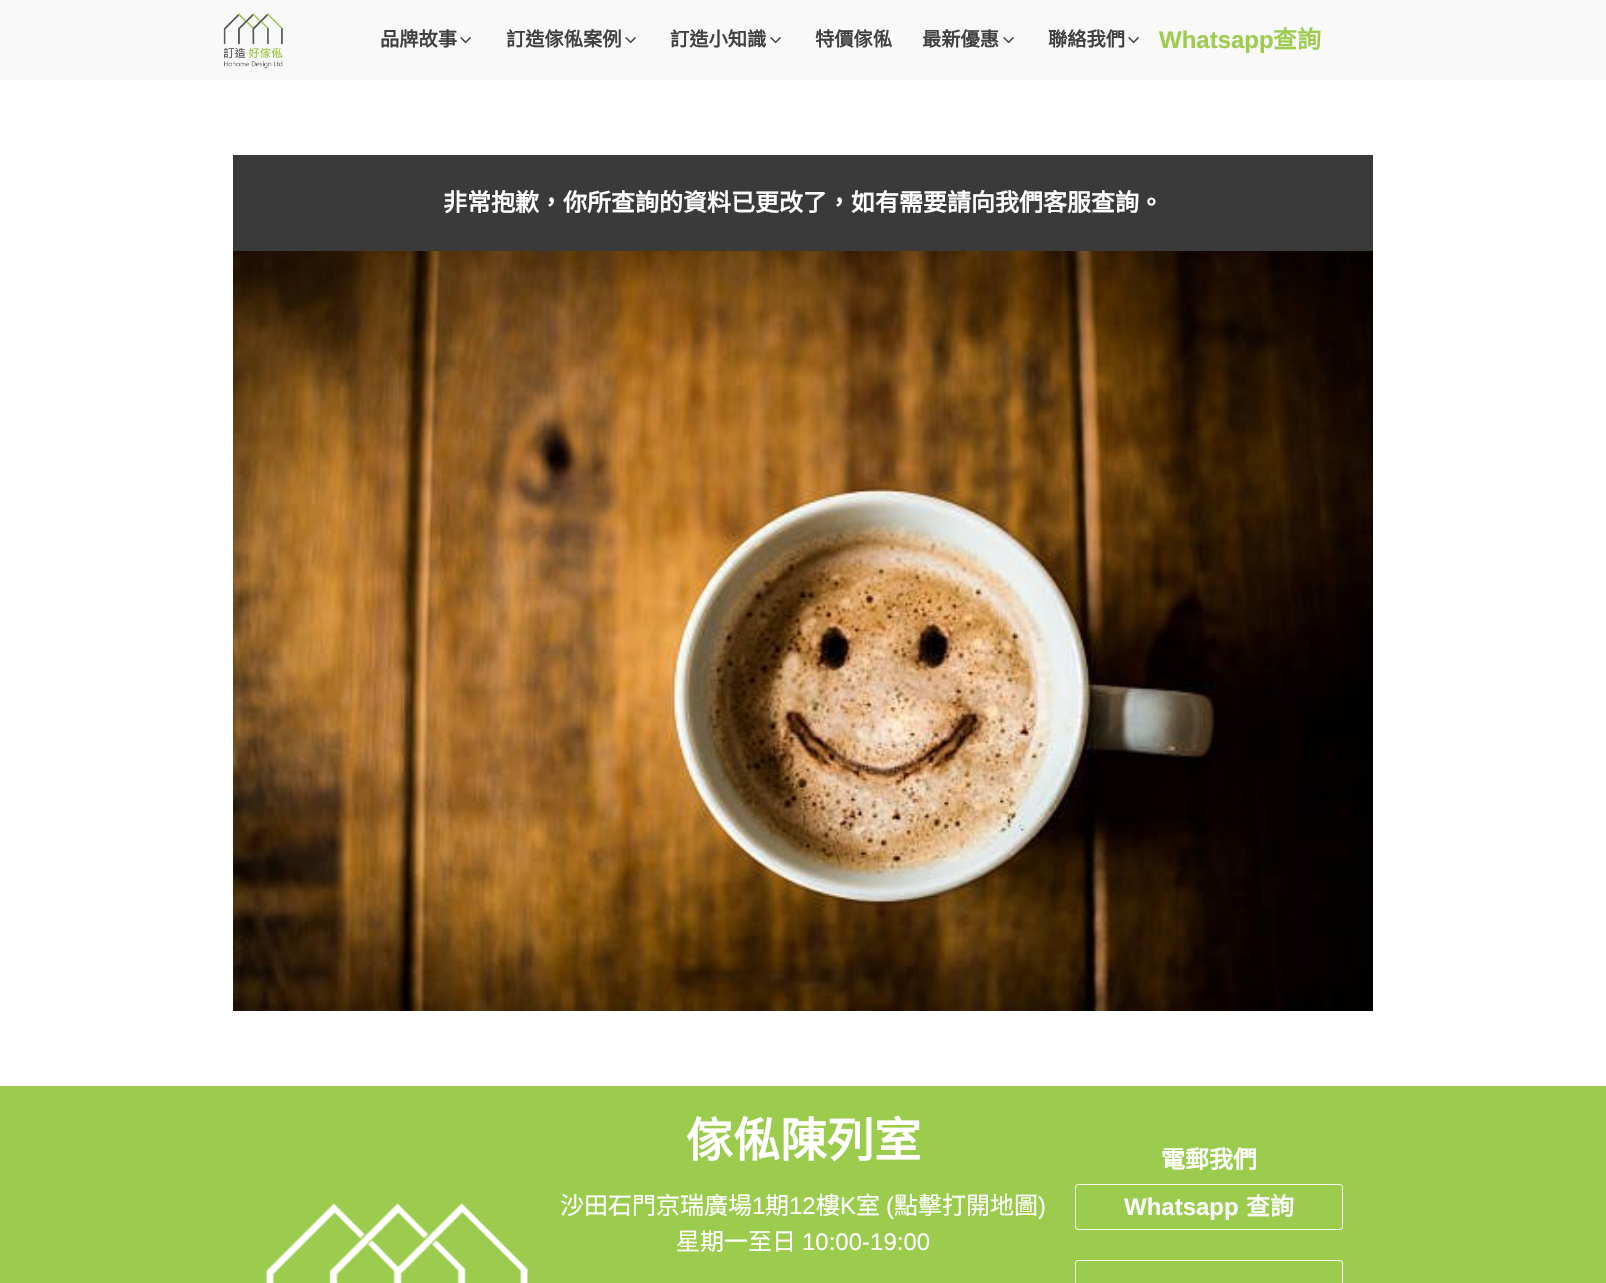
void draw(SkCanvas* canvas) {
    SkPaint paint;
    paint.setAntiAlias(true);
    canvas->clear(0xFFFFFFFF);
    paint.setColor(0xFFF9F9F9);
    canvas->drawRect(SkRect::MakeXYWH(0, 0, 1606, 80), paint);
    canvas->drawImageRect(SkImages::DeferredFromEncodedData(SkData::MakeFromFileName("img1.png")), SkRect::MakeXYWH(223, 13, 60, 56), SkSamplingOptions());
    SkFont font1(fontMgr->matchFamilyStyle("Noto Sans CJK HK", SkFontStyle::Bold()), 19.25f);
    font1.setSubpixel(true);
    paint.setColor(0xFF404040);
    canvas->drawString("品牌故事", 380, 46, font1, paint);
    canvas->drawImageRect(SkImages::DeferredFromEncodedData(SkData::MakeFromFileName("img2.png")), SkRect::MakeXYWH(460, 37, 11, 7), SkSamplingOptions());
    canvas->drawString("訂造傢俬案例", 506, 46, font1, paint);
    canvas->drawImageRect(SkImages::DeferredFromEncodedData(SkData::MakeFromFileName("img2.png")), SkRect::MakeXYWH(625, 37, 11, 7), SkSamplingOptions());
    canvas->drawString("訂造小知識", 670, 46, font1, paint);
    canvas->drawImageRect(SkImages::DeferredFromEncodedData(SkData::MakeFromFileName("img2.png")), SkRect::MakeXYWH(770, 37, 11, 7), SkSamplingOptions());
    canvas->drawString("特價傢俬", 815, 46, font1, paint);
    canvas->drawString("最新優惠", 922, 46, font1, paint);
    canvas->drawImageRect(SkImages::DeferredFromEncodedData(SkData::MakeFromFileName("img2.png")), SkRect::MakeXYWH(1003, 37, 11, 7), SkSamplingOptions());
    canvas->drawString("聯絡我們", 1048, 46, font1, paint);
    canvas->drawImageRect(SkImages::DeferredFromEncodedData(SkData::MakeFromFileName("img2.png")), SkRect::MakeXYWH(1128, 37, 11, 7), SkSamplingOptions());
    SkFont font2(fontMgr->matchFamilyStyle("Liberation Sans", SkFontStyle::Bold()), 24);
    font2.setSubpixel(true);
    paint.setColor(0xFF9DCC4F);
    canvas->drawString("Whatsapp", 1159, 48, font2, paint);
    SkFont font3(fontMgr->matchFamilyStyle("Noto Sans CJK HK", SkFontStyle::Bold()), 24);
    font3.setSubpixel(true);
    canvas->drawString("查詢", 1273, 48, font3, paint);
    paint.setColor(0xFF3A3A3A);
    canvas->drawRect(SkRect::MakeXYWH(233, 155, 1140, 96), paint);
    paint.setColor(0xFFFFFFFF);
    canvas->drawString("非常抱歉，你所查詢的資料已更改了，如有需要請向我們客服查詢。", 443, 211, font3, paint);
    canvas->drawImageRect(SkImages::DeferredFromEncodedData(SkData::MakeFromFileName("img3.png")), SkRect::MakeXYWH(233, 251, 1140, 760), SkSamplingOptions());
    paint.setColor(0xFF9CCC4E);
    canvas->drawRect(SkRect::MakeXYWH(0, 1086, 1606, 197), paint);
    SkFont font4(fontMgr->matchFamilyStyle("Noto Sans CJK HK", SkFontStyle::Bold()), 47);
    font4.setSubpixel(true);
    paint.setColor(0xFFFFFFFF);
    canvas->drawString("傢俬陳列室", 686, 1157, font4, paint);
    SkFont font5(fontMgr->matchFamilyStyle("Noto Sans CJK HK", SkFontStyle::Normal()), 24);
    font5.setSubpixel(true);
    canvas->drawString("沙田石門京瑞廣場", 560, 1214, font5, paint);
    SkFont font6(fontMgr->matchFamilyStyle("Liberation Sans", SkFontStyle::Normal()), 24);
    font6.setSubpixel(true);
    canvas->drawString("1", 752, 1214, font6, paint);
    canvas->drawString("期", 765, 1214, font5, paint);
    canvas->drawString("12", 789, 1214, font6, paint);
    canvas->drawString("樓", 816, 1214, font5, paint);
    canvas->drawString("K", 840, 1214, font6, paint);
    canvas->drawString("室", 856, 1214, font5, paint);
    canvas->drawString("(", 886, 1214, font6, paint);
    canvas->drawString("點擊打開地圖", 894, 1214, font5, paint);
    canvas->drawString(")", 1038, 1214, font6, paint);
    canvas->drawString("星期一至日", 676, 1250, font5, paint);
    canvas->drawString("10:00-19:00", 802, 1250, font6, paint);
    canvas->drawString("電郵我們", 1161, 1168, font3, paint);
    paint.setStyle(SkPaint::kStroke_Style);
    paint.setStrokeWidth(1);
    paint.setColor(0xFFF9F9F9);
    canvas->drawRoundRect(SkRect::MakeXYWH(1075.5f, 1184.5f, 267, 45), 2.5f, 2.5f, paint);
    paint.setStyle(SkPaint::kFill_Style);
    canvas->drawString("Whatsapp", 1124, 1215, font2, paint);
    canvas->drawString("查詢", 1246, 1215, font3, paint);
    paint.setStyle(SkPaint::kStroke_Style);
    canvas->drawRoundRect(SkRect::MakeXYWH(1075.5f, 1260.5f, 267, 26), 2.5f, 2.5f, paint);
    canvas->drawImageRect(SkImages::DeferredFromEncodedData(SkData::MakeFromFileName("img4.png")), SkRect::MakeXYWH(266, 1203, 263, 80), SkSamplingOptions());
}
